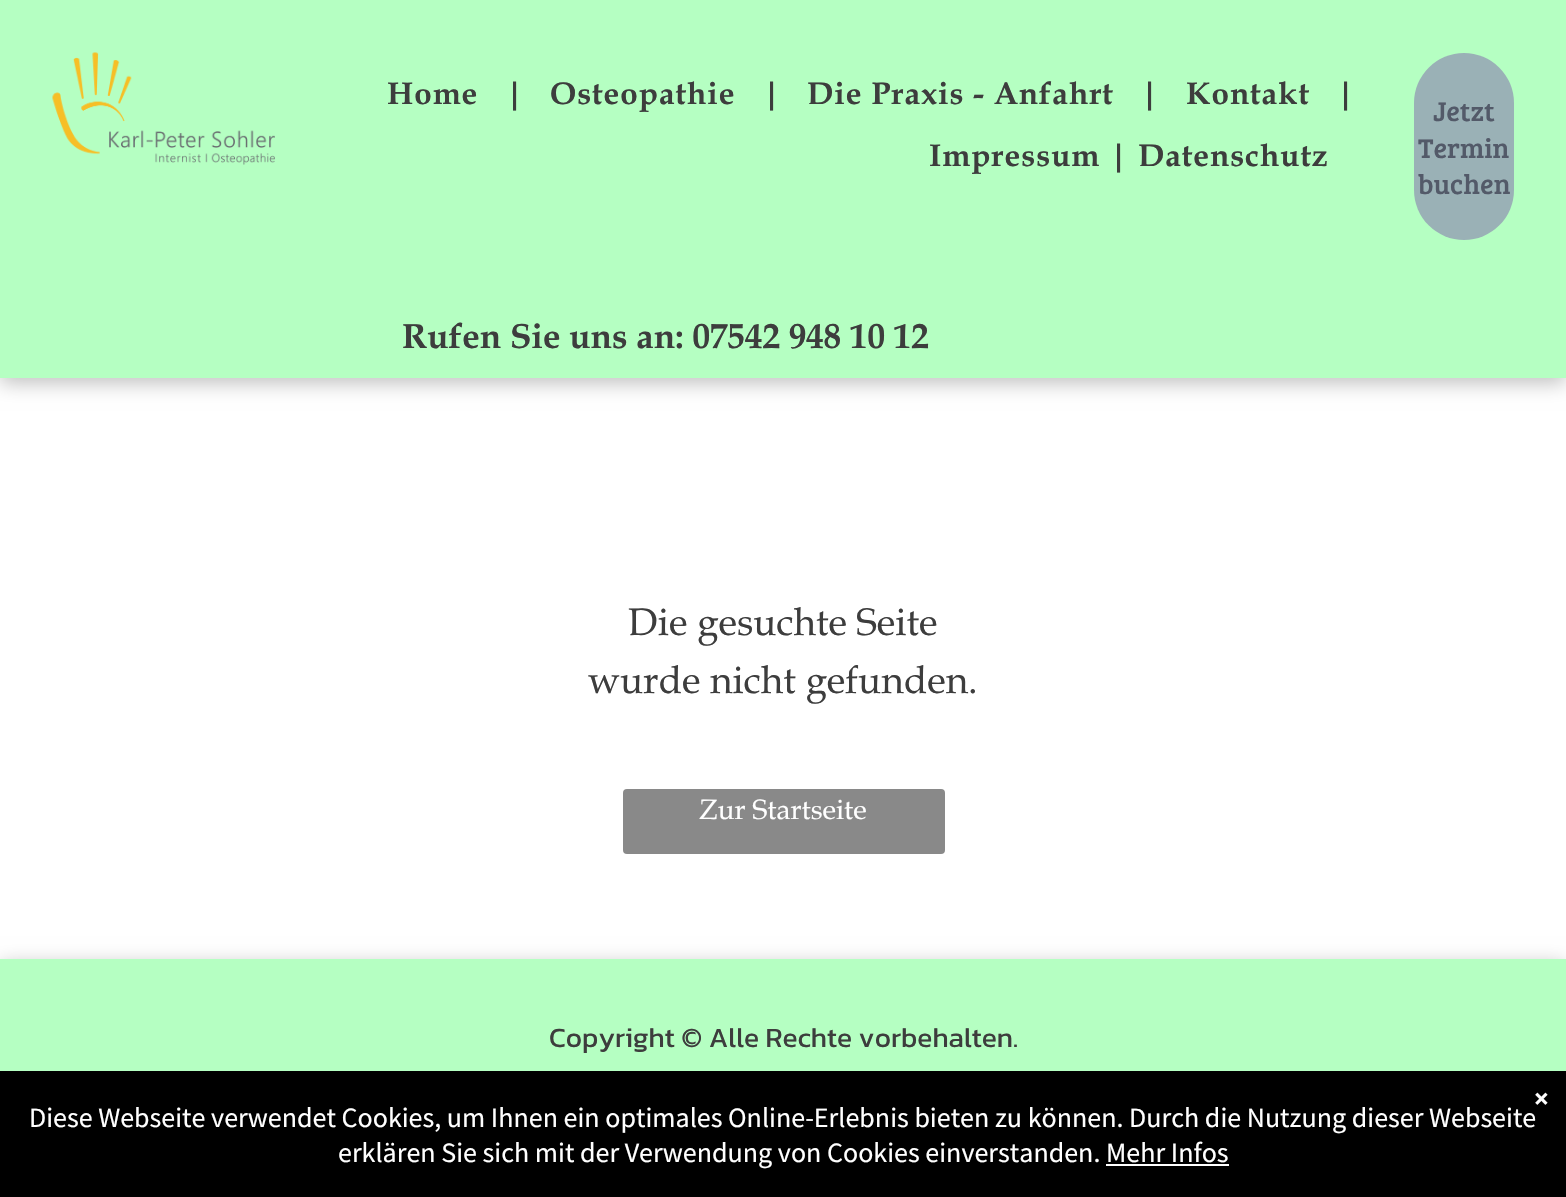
void draw(SkCanvas* canvas) {
    SkPaint paint;
    paint.setAntiAlias(true);
    auto spacedText = [&](const char* s, float x, float y, const SkFont& font, const SkPaint& ink, float letter, float word) {
        std::vector<SkGlyphID> glyphs(font.countText(s, strlen(s), SkTextEncoding::kUTF8));
        std::vector<float> xs(glyphs.size());
        font.textToGlyphs(s, strlen(s), SkTextEncoding::kUTF8, glyphs);
        font.getXPos(glyphs, xs, x);
        float extra = 0;
        for (size_t i = 0; i < glyphs.size(); i++) {
            xs[i] += extra;
            extra += letter + word * (glyphs[i] == font.unicharToGlyph(' '));
        }
        canvas->drawTextBlob(SkTextBlob::MakeFromPosHGlyphs(glyphs, xs, y, font), 0, 0, ink);
    };
    canvas->clear(0xFFFFFFFF);
    paint.setColor(0x40000000);
    paint.setMaskFilter(SkMaskFilter::MakeBlur(kNormal_SkBlurStyle, 9.5f));
    canvas->drawRect(SkRect::MakeXYWH(0, 5, 1566, 378), paint);
    paint.setMaskFilter(nullptr);
    paint.setColor(0xFFB5FFC2);
    canvas->drawRect(SkRect::MakeXYWH(0, 0, 1566, 378), paint);
    canvas->drawImageRect(SkImages::DeferredFromEncodedData(SkData::MakeFromFileName("img1.png")), SkRect::MakeXYWH(52, 52, 223, 113), SkSamplingOptions());
    SkFont font1(fontMgr->matchFamilyStyle("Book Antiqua", SkFontStyle::Bold()), 31.5f);
    font1.setSubpixel(true);
    paint.setColor(0xFF3D3D3D);
    spacedText("Home", 387, 104, font1, paint, 0.95f, 0);
    canvas->drawString("|", 505, 104, font1, paint);
    spacedText("Osteopathie", 550, 104, font1, paint, 0.95f, 0);
    canvas->drawString("|", 762, 104, font1, paint);
    spacedText("Die Praxis - Anfahrt", 807, 104, font1, paint, 0.95f, 0);
    canvas->drawString("|", 1140, 104, font1, paint);
    spacedText("Kontakt", 1186, 104, font1, paint, 0.95f, 0);
    canvas->drawString("|", 1336, 104, font1, paint);
    spacedText("Impressum | Datenschutz", 929, 166, font1, paint, 0.95f, 0);
    paint.setColor(0xFF9AB1B6);
    canvas->drawRoundRect(SkRect::MakeXYWH(1414, 53, 100, 187), 50, 50, paint);
    SkFont font2(fontMgr->matchFamilyStyle("Bree Serif", SkFontStyle::Normal()), 28);
    font2.setSubpixel(true);
    paint.setColor(0xFF535A69);
    canvas->drawString("Jetzt", 1433, 121, font2, paint);
    canvas->drawString("Termin", 1418, 158, font2, paint);
    canvas->drawString("buchen", 1418, 194, font2, paint);
    SkFont font3(fontMgr->matchFamilyStyle("Book Antiqua", SkFontStyle::Bold()), 35);
    font3.setSubpixel(true);
    paint.setColor(0xFF3D3D3D);
    canvas->drawString("Rufen Sie uns an: 07542 948 10 12", 402, 348, font3, paint);
    SkFont font4(fontMgr->matchFamilyStyle("Book Antiqua", SkFontStyle::Normal()), 38.5f);
    font4.setSubpixel(true);
    canvas->drawString("Die gesuchte Seite", 628, 635, font4, paint);
    canvas->drawString("wurde nicht gefunden.", 588, 693, font4, paint);
    paint.setColor(0xFF898989);
    canvas->drawRoundRect(SkRect::MakeXYWH(623, 789, 322, 65), 4, 4, paint);
    SkFont font5(fontMgr->matchFamilyStyle("Book Antiqua", SkFontStyle::Normal()), 28);
    font5.setSubpixel(true);
    paint.setColor(0xFFFFFFFF);
    canvas->drawString("Zur Startseite", 699, 819, font5, paint);
    paint.setColor(0x40000000);
    paint.setMaskFilter(SkMaskFilter::MakeBlur(kNormal_SkBlurStyle, 9.5f));
    canvas->drawRect(SkRect::MakeXYWH(0, 964, 1566, 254), paint);
    paint.setMaskFilter(nullptr);
    paint.setColor(0xFFB5FFC2);
    canvas->drawRect(SkRect::MakeXYWH(0, 959, 1566, 112), paint);
    SkFont font6(fontMgr->matchFamilyStyle("Kanit", SkFontStyle::Normal()), 28);
    font6.setSubpixel(true);
    paint.setColor(0xFF3D3D3D);
    canvas->drawString("Copyright © Alle Rechte vorbehalten.", 549, 1047, font6, paint);
    paint.setColor(0xFF000000);
    canvas->drawRect(SkRect::MakeXYWH(0, 1071, 1566, 126), paint);
    SkFont font7(fontMgr->matchFamilyStyle("Source Sans Pro", SkFontStyle::Bold()), 28);
    font7.setSubpixel(true);
    paint.setColor(0xFFFFFFFF);
    canvas->drawString("×", 1534, 1108, font7, paint);
    SkFont font8(fontMgr->matchFamilyStyle("Source Sans Pro", SkFontStyle::Normal()), 28);
    font8.setSubpixel(true);
    canvas->drawString("Diese Webseite verwendet Cookies, um Ihnen ein optimales Online-Erlebnis bieten zu können. Durch die Nutzung dieser Webseite", 29, 1127, font8, paint);
    canvas->drawString("erklären Sie sich mit der Verwendung von Cookies einverstanden. Mehr Infos", 338, 1162, font8, paint);
    canvas->drawRect(SkRect::MakeXYWH(1106, 1164, 123, 2), paint);
}
